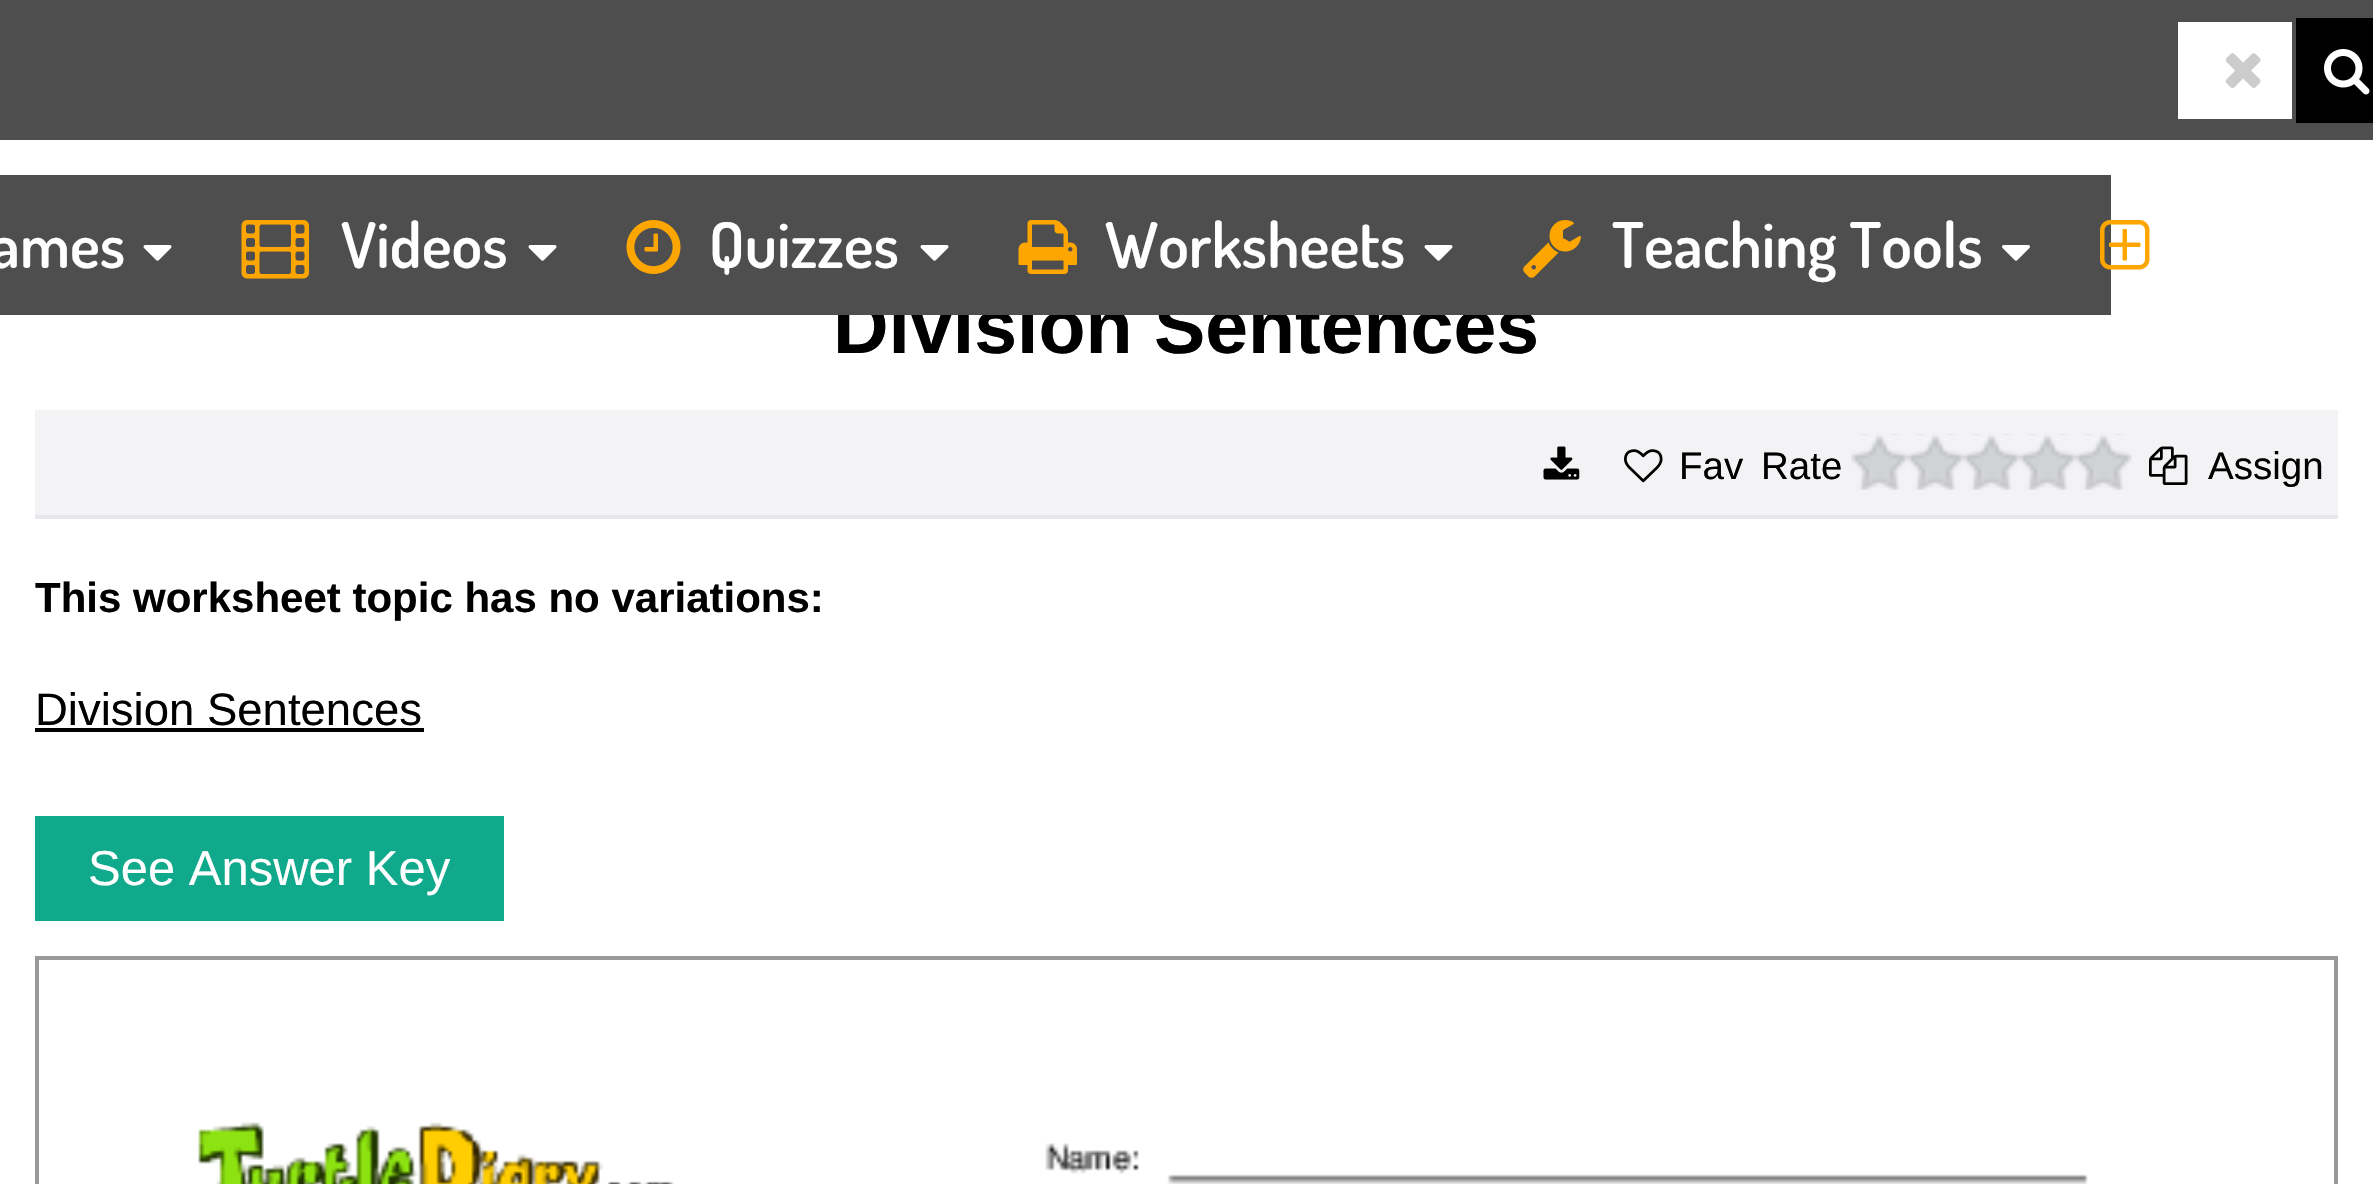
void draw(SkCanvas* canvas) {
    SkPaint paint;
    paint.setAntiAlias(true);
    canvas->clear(0xFFFFFFFF);
    paint.setColor(0xFF4E4E4E);
    canvas->drawRect(SkRect::MakeXYWH(0, 0, 2373, 140), paint);
    paint.setColor(0xFFFFFFFF);
    canvas->drawRect(SkRect::MakeXYWH(2178, 22, 114, 97), paint);
    canvas->drawImageRect(SkImages::DeferredFromEncodedData(SkData::MakeFromFileName("img1.png")), SkRect::MakeXYWH(2225, 53, 36, 35), SkSamplingOptions());
    paint.setColor(0xFF000000);
    canvas->drawRect(SkRect::MakeXYWH(2296, 18, 77, 105), paint);
    canvas->drawImageRect(SkImages::DeferredFromEncodedData(SkData::MakeFromFileName("img2.png")), SkRect::MakeXYWH(2324, 49, 46, 46), SkSamplingOptions());
    SkFont font1(fontMgr->matchFamilyStyle("Liberation Sans", SkFontStyle::Bold()), 77);
    font1.setSubpixel(true);
    canvas->drawString("Division Sentences", 833, 353, font1, paint);
    paint.setColor(0xFF4E4E4E);
    canvas->drawRect(SkRect::MakeXYWH(0, 175, 2111, 140), paint);
    SkFont font2(fontMgr->matchFamilyStyle("Dosis", SkFontStyle(600, SkFontStyle::kNormal_Width, SkFontStyle::kUpright_Slant)), 63);
    font2.setSubpixel(true);
    paint.setColor(0xFFFFFFFF);
    canvas->drawString("ames", -9, 268, font2, paint);
    canvas->drawImageRect(SkImages::DeferredFromEncodedData(SkData::MakeFromFileName("img3.png")), SkRect::MakeXYWH(143, 245, 29, 16), SkSamplingOptions());
    canvas->drawImageRect(SkImages::DeferredFromEncodedData(SkData::MakeFromFileName("img4.png")), SkRect::MakeXYWH(241, 220, 68, 59), SkSamplingOptions());
    canvas->drawString("Videos", 341, 268, font2, paint);
    canvas->drawImageRect(SkImages::DeferredFromEncodedData(SkData::MakeFromFileName("img3.png")), SkRect::MakeXYWH(528, 245, 29, 16), SkSamplingOptions());
    canvas->drawImageRect(SkImages::DeferredFromEncodedData(SkData::MakeFromFileName("img5.png")), SkRect::MakeXYWH(626, 220, 55, 54), SkSamplingOptions());
    canvas->drawString("Quizzes", 709, 268, font2, paint);
    canvas->drawImageRect(SkImages::DeferredFromEncodedData(SkData::MakeFromFileName("img3.png")), SkRect::MakeXYWH(920, 245, 29, 16), SkSamplingOptions());
    canvas->drawImageRect(SkImages::DeferredFromEncodedData(SkData::MakeFromFileName("img6.png")), SkRect::MakeXYWH(1018, 220, 59, 54), SkSamplingOptions());
    canvas->drawString("Worksheets", 1105, 268, font2, paint);
    canvas->drawImageRect(SkImages::DeferredFromEncodedData(SkData::MakeFromFileName("img3.png")), SkRect::MakeXYWH(1424, 245, 29, 16), SkSamplingOptions());
    canvas->drawImageRect(SkImages::DeferredFromEncodedData(SkData::MakeFromFileName("img7.png")), SkRect::MakeXYWH(1523, 220, 58, 58), SkSamplingOptions());
    canvas->drawString("Teaching Tools", 1612, 268, font2, paint);
    canvas->drawImageRect(SkImages::DeferredFromEncodedData(SkData::MakeFromFileName("img8.png")), SkRect::MakeXYWH(2002, 245, 28, 16), SkSamplingOptions());
    canvas->drawImageRect(SkImages::DeferredFromEncodedData(SkData::MakeFromFileName("img9.png")), SkRect::MakeXYWH(2100, 220, 50, 50), SkSamplingOptions());
    paint.setColor(0xFFF3F3F5);
    canvas->drawRect(SkRect::MakeXYWH(35, 410, 2303, 105), paint);
    canvas->drawImageRect(SkImages::DeferredFromEncodedData(SkData::MakeFromFileName("img10.png")), SkRect::MakeXYWH(1543, 446, 37, 34), SkSamplingOptions());
    canvas->drawImageRect(SkImages::DeferredFromEncodedData(SkData::MakeFromFileName("img11.png")), SkRect::MakeXYWH(1624, 449, 39, 34), SkSamplingOptions());
    SkFont font3(fontMgr->matchFamilyStyle("Liberation Sans", SkFontStyle::Normal()), 38.5f);
    font3.setSubpixel(true);
    paint.setColor(0xFF000000);
    canvas->drawString("Fav", 1679, 479, font3, paint);
    canvas->drawString("Rate", 1761, 479, font3, paint);
    canvas->drawImageRect(SkImages::DeferredFromEncodedData(SkData::MakeFromFileName("img12.png")), SkRect::MakeXYWH(1851, 434, 281, 56), SkSamplingOptions());
    canvas->drawImageRect(SkImages::DeferredFromEncodedData(SkData::MakeFromFileName("img13.png")), SkRect::MakeXYWH(2149, 446, 39, 39), SkSamplingOptions());
    canvas->drawString("Assign", 2208, 479, font3, paint);
    paint.setColor(0xFFE7E7EB);
    canvas->drawRect(SkRect::MakeXYWH(35, 515, 2303, 4), paint);
    SkFont font4(fontMgr->matchFamilyStyle("Liberation Sans", SkFontStyle::Bold()), 42);
    font4.setSubpixel(true);
    paint.setColor(0xFF000000);
    canvas->drawString("This worksheet topic has no variations:", 35, 612, font4, paint);
    SkFont font5(fontMgr->matchFamilyStyle("Liberation Sans", SkFontStyle::Normal()), 45.5f);
    font5.setSubpixel(true);
    canvas->drawString("Division Sentences", 35, 725, font5, paint);
    canvas->drawRect(SkRect::MakeXYWH(35, 728, 389, 4), paint);
    paint.setColor(0xFF10A98B);
    canvas->drawRect(SkRect::MakeXYWH(35, 816, 469, 105), paint);
    SkFont font6(fontMgr->matchFamilyStyle("Liberation Sans", SkFontStyle::Normal()), 49);
    font6.setSubpixel(true);
    paint.setColor(0xFFFFFFFF);
    canvas->drawString("See Answer Key", 88, 885, font6, paint);
    paint.setStyle(SkPaint::kStroke_Style);
    paint.setStrokeWidth(4);
    paint.setColor(0xFF999999);
    canvas->drawRect(SkRect::MakeXYWH(37, 958, 2299, 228), paint);
    canvas->drawImageRect(SkImages::DeferredFromEncodedData(SkData::MakeFromFileName("img14.png")), SkRect::MakeXYWH(198, 1122, 1890, 62), SkSamplingOptions());
}
